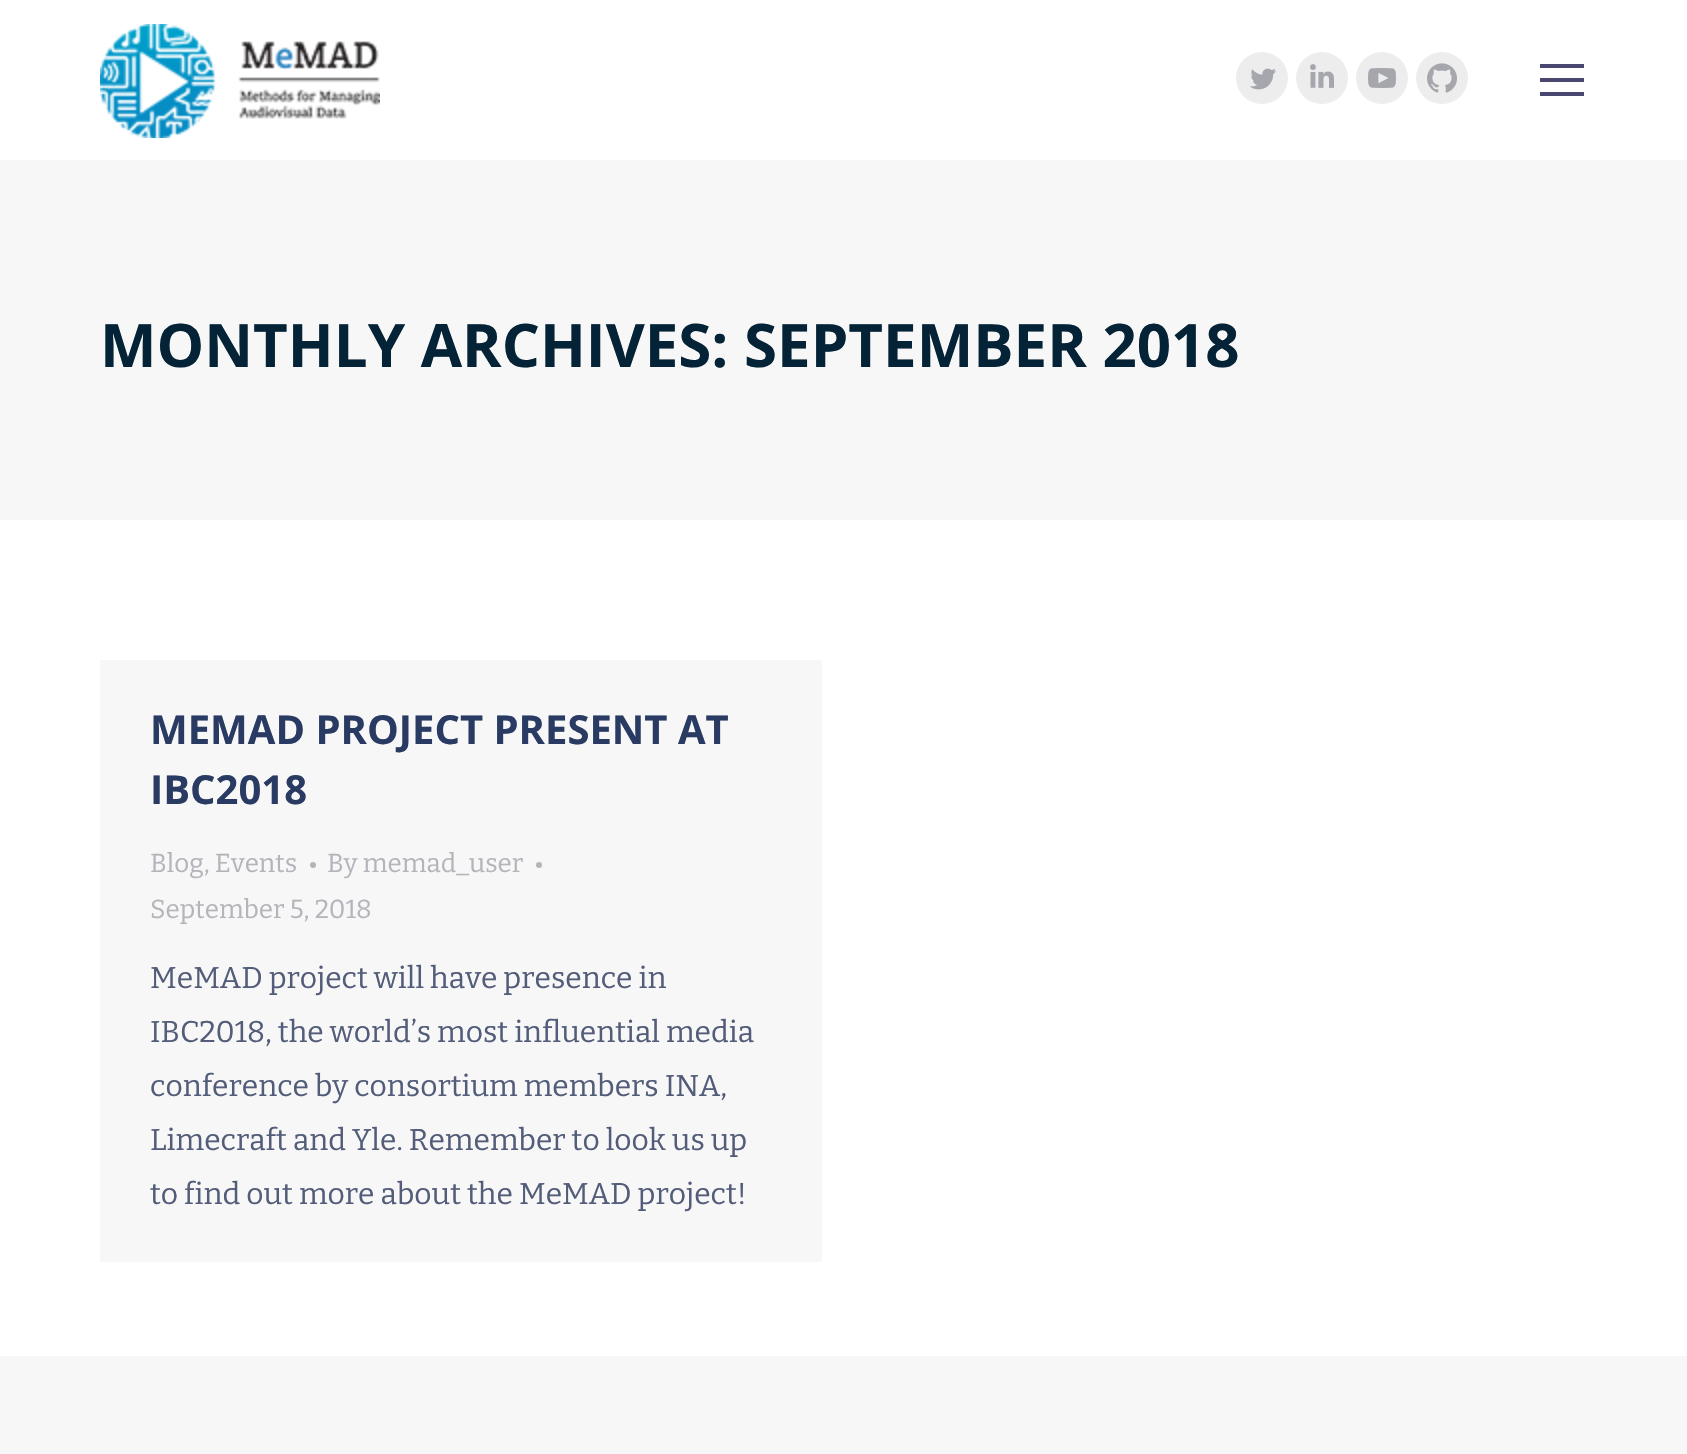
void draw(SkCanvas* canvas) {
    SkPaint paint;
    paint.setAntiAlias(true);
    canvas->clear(0xFFF7F7F7);
    paint.setColor(0xFFFFFFFF);
    canvas->drawRect(SkRect::MakeXYWH(0, 0, 1687, 1356), paint);
    canvas->drawImageRect(SkImages::DeferredFromEncodedData(SkData::MakeFromFileName("img1.png")), SkRect::MakeXYWH(100, 24, 280, 114), SkSamplingOptions());
    paint.setColor(0xFFEDEDEE);
    canvas->drawCircle(1262, 78, 26, paint);
    canvas->drawImageRect(SkImages::DeferredFromEncodedData(SkData::MakeFromFileName("img2.png")), SkRect::MakeXYWH(1250, 68, 26, 22), SkSamplingOptions());
    canvas->drawCircle(1322, 78, 26, paint);
    canvas->drawImageRect(SkImages::DeferredFromEncodedData(SkData::MakeFromFileName("img3.png")), SkRect::MakeXYWH(1310, 64, 24, 24), SkSamplingOptions());
    canvas->drawCircle(1382, 78, 26, paint);
    canvas->drawImageRect(SkImages::DeferredFromEncodedData(SkData::MakeFromFileName("img4.png")), SkRect::MakeXYWH(1368, 68, 28, 20), SkSamplingOptions());
    canvas->drawCircle(1442, 78, 26, paint);
    canvas->drawImageRect(SkImages::DeferredFromEncodedData(SkData::MakeFromFileName("img5.png")), SkRect::MakeXYWH(1427, 63, 30, 30), SkSamplingOptions());
    paint.setColor(0xFF494770);
    canvas->drawRect(SkRect::MakeXYWH(1540, 78, 44, 4), paint);
    canvas->drawRect(SkRect::MakeXYWH(1540, 64, 44, 4), paint);
    canvas->drawRect(SkRect::MakeXYWH(1540, 92, 44, 4), paint);
    paint.setColor(0xFFF7F7F7);
    canvas->drawRect(SkRect::MakeXYWH(0, 160, 1687, 360), paint);
    SkFont font1(fontMgr->matchFamilyStyle("Open Sans", SkFontStyle::Bold()), 60);
    font1.setSubpixel(true);
    paint.setColor(0xFF052336);
    canvas->drawString("MONTHLY ARCHIVES: SEPTEMBER 2018", 100, 367, font1, paint);
    paint.setColor(0xFFF7F7F7);
    canvas->drawRect(SkRect::MakeXYWH(100, 660, 722, 602), paint);
    SkFont font2(fontMgr->matchFamilyStyle("Open Sans", SkFontStyle::Bold()), 40);
    font2.setSubpixel(true);
    paint.setColor(0xFF2A3B63);
    canvas->drawString("MEMAD PROJECT PRESENT AT", 150, 744, font2, paint);
    canvas->drawString("IBC2018", 150, 804, font2, paint);
    SkFont font3(fontMgr->matchFamilyStyle("Bitter", SkFontStyle::Normal()), 26);
    font3.setSubpixel(true);
    paint.setColor(0xFFB4B5BB);
    canvas->drawString("Blog, Events", 150, 872, font3, paint);
    canvas->drawCircle(313, 865, 3, paint);
    canvas->drawString("By memad_user", 327, 872, font3, paint);
    canvas->drawCircle(539, 865, 3, paint);
    canvas->drawString("September 5, 2018", 150, 918, font3, paint);
    SkFont font4(fontMgr->matchFamilyStyle("Bitter", SkFontStyle::Normal()), 30);
    font4.setSubpixel(true);
    paint.setColor(0xFF535D7A);
    canvas->drawString("MeMAD project will have presence in", 150, 988, font4, paint);
    canvas->drawString("IBC2018, the world’s most influential media", 150, 1042, font4, paint);
    canvas->drawString("conference by consortium members INA,", 150, 1096, font4, paint);
    canvas->drawString("Limecraft and Yle. Remember to look us up", 150, 1150, font4, paint);
    canvas->drawString("to find out more about the MeMAD project!", 150, 1204, font4, paint);
}
